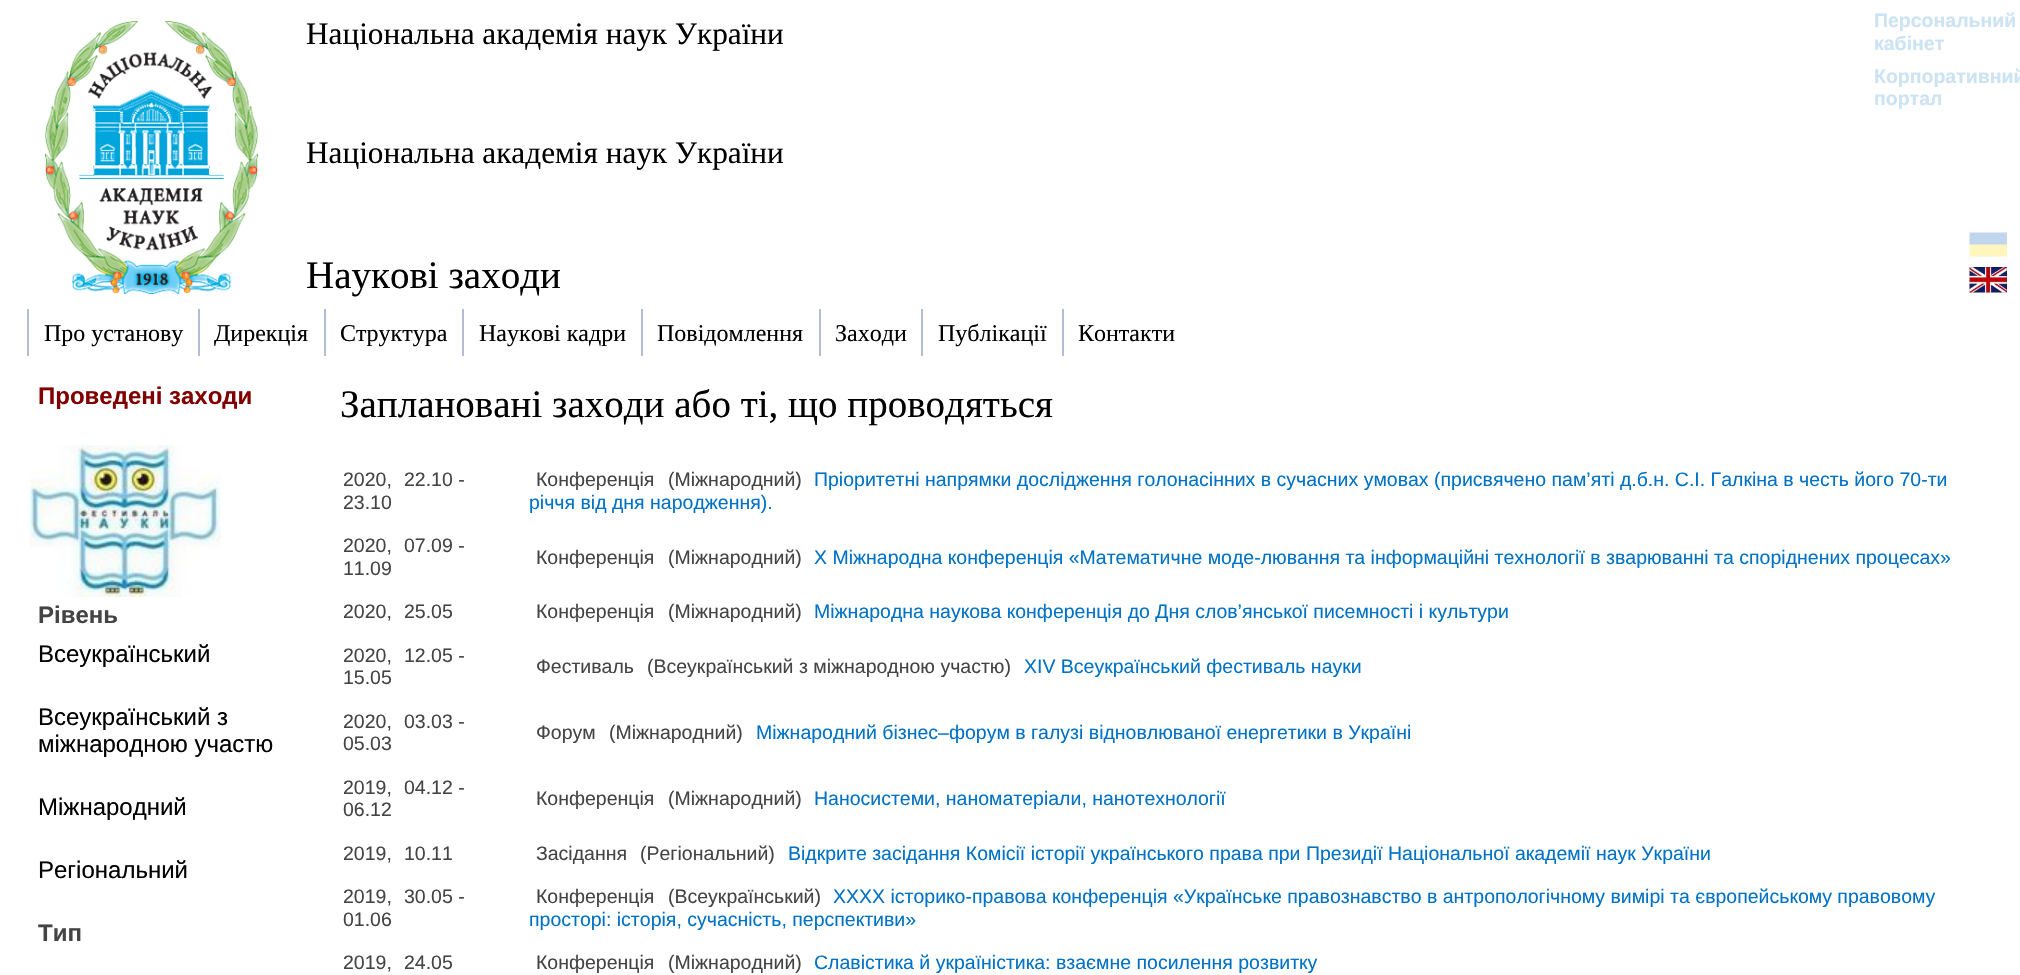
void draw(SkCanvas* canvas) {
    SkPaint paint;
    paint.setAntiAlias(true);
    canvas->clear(0xFFFFFFFF);
    canvas->drawImageRect(SkImages::DeferredFromEncodedData(SkData::MakeFromFileName("img1.png")), SkRect::MakeXYWH(45, 21, 213, 273), SkSamplingOptions());
    SkFont font1(fontMgr->matchFamilyStyle("Liberation Serif", SkFontStyle::Normal()), 31.25f);
    font1.setSubpixel(true);
    paint.setColor(0xFF000000);
    canvas->drawString("Національна академія наук України", 306, 44, font1, paint);
    SkFont font2(fontMgr->matchFamilyStyle("Liberation Sans", SkFontStyle::Bold()), 19.5f);
    font2.setSubpixel(true);
    paint.setColor(0xFFCCE3F4);
    canvas->drawString("Персональний", 1874, 27, font2, paint);
    canvas->drawString("кабінет", 1874, 50, font2, paint);
    canvas->drawString("Корпоративний", 1874, 83, font2, paint);
    canvas->drawString("портал", 1874, 105, font2, paint);
    paint.setColor(0xFF000000);
    canvas->drawString("Національна академія наук України", 306, 163, font1, paint);
    canvas->drawImageRect(SkImages::DeferredFromEncodedData(SkData::MakeFromFileName("img2.png")), SkRect::MakeXYWH(1969, 232, 38, 25), SkSamplingOptions());
    canvas->drawImageRect(SkImages::DeferredFromEncodedData(SkData::MakeFromFileName("img3.png")), SkRect::MakeXYWH(1969, 267, 38, 26), SkSamplingOptions());
    SkFont font3(fontMgr->matchFamilyStyle("Liberation Serif", SkFontStyle::Normal()), 39);
    font3.setSubpixel(true);
    canvas->drawString("Наукові заходи", 306, 288, font3, paint);
    paint.setColor(0xFFB2BDD3);
    canvas->drawRect(SkRect::MakeXYWH(27, 309, 2, 47), paint);
    SkFont font4(fontMgr->matchFamilyStyle("Liberation Serif", SkFontStyle::Normal()), 24);
    font4.setSubpixel(true);
    paint.setColor(0xFF000000);
    canvas->drawString("Про установу", 44, 341, font4, paint);
    paint.setColor(0xFFB2BDD3);
    canvas->drawRect(SkRect::MakeXYWH(198, 309, 2, 47), paint);
    paint.setColor(0xFF000000);
    canvas->drawString("Дирекція", 214, 341, font4, paint);
    paint.setColor(0xFFB2BDD3);
    canvas->drawRect(SkRect::MakeXYWH(324, 309, 2, 47), paint);
    paint.setColor(0xFF000000);
    canvas->drawString("Структура", 340, 341, font4, paint);
    paint.setColor(0xFFB2BDD3);
    canvas->drawRect(SkRect::MakeXYWH(462, 309, 2, 47), paint);
    paint.setColor(0xFF000000);
    canvas->drawString("Наукові кадри", 479, 341, font4, paint);
    paint.setColor(0xFFB2BDD3);
    canvas->drawRect(SkRect::MakeXYWH(641, 309, 2, 47), paint);
    paint.setColor(0xFF000000);
    canvas->drawString("Повідомлення", 657, 341, font4, paint);
    paint.setColor(0xFFB2BDD3);
    canvas->drawRect(SkRect::MakeXYWH(819, 309, 2, 47), paint);
    paint.setColor(0xFF000000);
    canvas->drawString("Заходи", 835, 341, font4, paint);
    paint.setColor(0xFFB2BDD3);
    canvas->drawRect(SkRect::MakeXYWH(921, 309, 2, 47), paint);
    paint.setColor(0xFF000000);
    canvas->drawString("Публікації", 938, 341, font4, paint);
    paint.setColor(0xFFB2BDD3);
    canvas->drawRect(SkRect::MakeXYWH(1062, 309, 2, 47), paint);
    paint.setColor(0xFF000000);
    canvas->drawString("Контакти", 1078, 341, font4, paint);
    SkFont font5(fontMgr->matchFamilyStyle("Liberation Sans", SkFontStyle::Bold()), 24);
    font5.setSubpixel(true);
    paint.setColor(0xFF800000);
    canvas->drawString("Проведені заходи", 38, 404, font5, paint);
    canvas->drawImageRect(SkImages::DeferredFromEncodedData(SkData::MakeFromFileName("img4.png")), SkRect::MakeXYWH(30, 445, 191, 152), SkSamplingOptions());
    paint.setColor(0xFF444444);
    canvas->drawString("Рівень", 38, 623, font5, paint);
    SkFont font6(fontMgr->matchFamilyStyle("Liberation Sans", SkFontStyle::Normal()), 24);
    font6.setSubpixel(true);
    paint.setColor(0xFF000000);
    canvas->drawString("Всеукраїнський", 38, 662, font6, paint);
    canvas->drawString("Всеукраїнський з", 38, 725, font6, paint);
    canvas->drawString("міжнародною участю", 38, 752, font6, paint);
    canvas->drawString("Міжнародний", 38, 815, font6, paint);
    canvas->drawString("Регіональний", 38, 878, font6, paint);
    paint.setColor(0xFF444444);
    canvas->drawString("Тип", 38, 941, font5, paint);
    paint.setColor(0xFF000000);
    canvas->drawString("Заплановані заходи або ті, що проводяться", 340, 417, font3, paint);
    SkFont font7(fontMgr->matchFamilyStyle("Liberation Sans", SkFontStyle::Normal()), 19.5f);
    font7.setSubpixel(true);
    paint.setColor(0xFF444444);
    canvas->drawString("2020,", 343, 486, font7, paint);
    canvas->drawString("22.10 -", 404, 486, font7, paint);
    canvas->drawString("23.10", 343, 509, font7, paint);
    canvas->drawString("Конференція", 536, 486, font7, paint);
    canvas->drawString("(Міжнародний)", 668, 486, font7, paint);
    paint.setColor(0xFF0072C6);
    canvas->drawString("Пріоритетні напрямки дослідження голонасінних в сучасних умовах (присвячено пам’яті д.б.н. С.І. Галкіна в честь його 70-ти", 814, 486, font7, paint);
    canvas->drawString("річчя від дня народження).", 529, 509, font7, paint);
    paint.setColor(0xFF444444);
    canvas->drawString("2020,", 343, 552, font7, paint);
    canvas->drawString("07.09 -", 404, 552, font7, paint);
    canvas->drawString("11.09", 343, 575, font7, paint);
    canvas->drawString("Конференція", 536, 564, font7, paint);
    canvas->drawString("(Міжнародний)", 668, 564, font7, paint);
    paint.setColor(0xFF0072C6);
    canvas->drawString("Х Міжнародна конференція «Математичне моде-лювання та інформаційні технології в зварюванні та споріднених процесах»", 814, 564, font7, paint);
    paint.setColor(0xFF444444);
    canvas->drawString("2020,", 343, 618, font7, paint);
    canvas->drawString("25.05", 404, 618, font7, paint);
    canvas->drawString("Конференція", 536, 618, font7, paint);
    canvas->drawString("(Міжнародний)", 668, 618, font7, paint);
    paint.setColor(0xFF0072C6);
    canvas->drawString("Міжнародна наукова конференція до Дня слов’янської писемності і культури", 814, 618, font7, paint);
    paint.setColor(0xFF444444);
    canvas->drawString("2020,", 343, 662, font7, paint);
    canvas->drawString("12.05 -", 404, 662, font7, paint);
    canvas->drawString("15.05", 343, 684, font7, paint);
    canvas->drawString("Фестиваль", 536, 673, font7, paint);
    canvas->drawString("(Всеукраїнський з міжнародною участю)", 647, 673, font7, paint);
    paint.setColor(0xFF0072C6);
    canvas->drawString("XІV Всеукраїнський фестиваль науки", 1024, 673, font7, paint);
    paint.setColor(0xFF444444);
    canvas->drawString("2020,", 343, 728, font7, paint);
    canvas->drawString("03.03 -", 404, 728, font7, paint);
    canvas->drawString("05.03", 343, 750, font7, paint);
    canvas->drawString("Форум", 536, 739, font7, paint);
    canvas->drawString("(Міжнародний)", 609, 739, font7, paint);
    paint.setColor(0xFF0072C6);
    canvas->drawString("Міжнародний бізнес–форум в галузі відновлюваної енергетики в Україні", 756, 739, font7, paint);
    paint.setColor(0xFF444444);
    canvas->drawString("2019,", 343, 794, font7, paint);
    canvas->drawString("04.12 -", 404, 794, font7, paint);
    canvas->drawString("06.12", 343, 816, font7, paint);
    canvas->drawString("Конференція", 536, 805, font7, paint);
    canvas->drawString("(Міжнародний)", 668, 805, font7, paint);
    paint.setColor(0xFF0072C6);
    canvas->drawString("Наносистеми, наноматеріали, нанотехнології", 814, 805, font7, paint);
    paint.setColor(0xFF444444);
    canvas->drawString("2019,", 343, 860, font7, paint);
    canvas->drawString("10.11", 404, 860, font7, paint);
    canvas->drawString("Засідання", 536, 860, font7, paint);
    canvas->drawString("(Регіональний)", 640, 860, font7, paint);
    paint.setColor(0xFF0072C6);
    canvas->drawString("Відкрите засідання Комісії історії українського права при Президії Національної академії наук України", 788, 860, font7, paint);
    paint.setColor(0xFF444444);
    canvas->drawString("2019,", 343, 903, font7, paint);
    canvas->drawString("30.05 -", 404, 903, font7, paint);
    canvas->drawString("01.06", 343, 926, font7, paint);
    canvas->drawString("Конференція", 536, 903, font7, paint);
    canvas->drawString("(Всеукраїнський)", 668, 903, font7, paint);
    paint.setColor(0xFF0072C6);
    canvas->drawString("ХХХХ історико-правова конференція «Українське правознавство в антропологічному вимірі та європейському правовому", 833, 903, font7, paint);
    canvas->drawString("просторі: історія, сучасність, перспективи»", 529, 926, font7, paint);
    paint.setColor(0xFF444444);
    canvas->drawString("2019,", 343, 969, font7, paint);
    canvas->drawString("24.05", 404, 969, font7, paint);
    canvas->drawString("Конференція", 536, 969, font7, paint);
    canvas->drawString("(Міжнародний)", 668, 969, font7, paint);
    paint.setColor(0xFF0072C6);
    canvas->drawString("Славістика й україністика: взаємне посилення розвитку", 814, 969, font7, paint);
}
